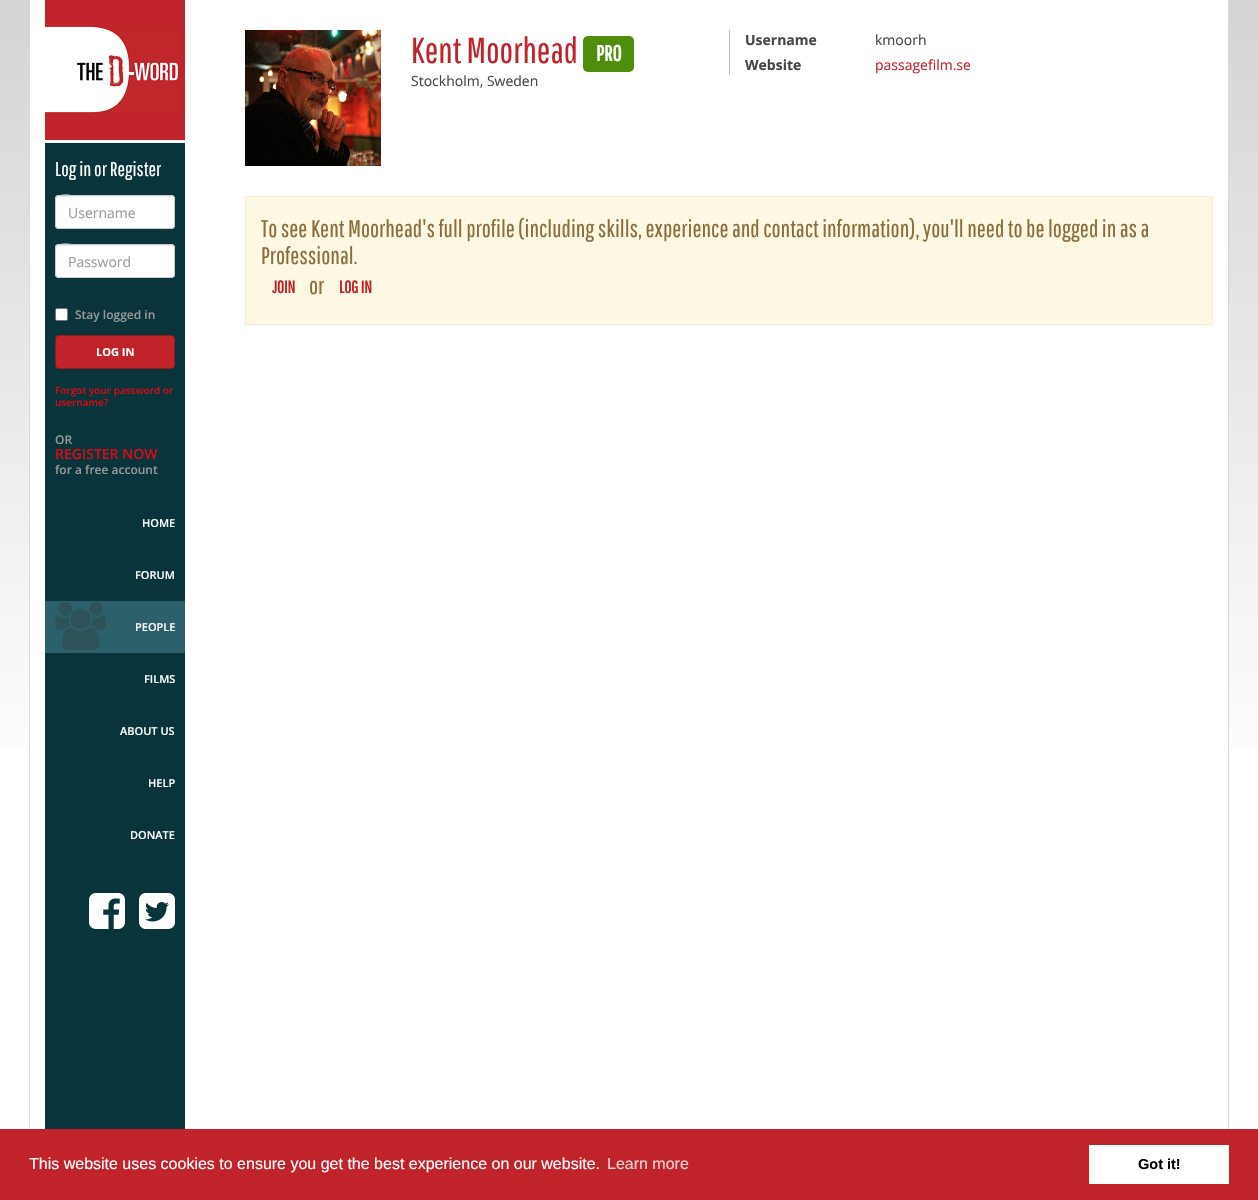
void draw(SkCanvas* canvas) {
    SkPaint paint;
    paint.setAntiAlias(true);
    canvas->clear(0xFFFFFFFF);
    {
        const SkColor colors[] = {0xFFD4D4D4, 0xFFFFFFFF};
        const float stops[] = {0, 0.66f};
        const SkPoint ends[] = {{629, 0}, {629, 1200}};
        paint.setShader(SkGradientShader::MakeLinear(ends, colors, stops, 2, SkTileMode::kClamp));
        paint.setAlpha(255);
    }
    canvas->drawRect(SkRect::MakeXYWH(0, 0, 1258, 746), paint);
    paint.setShader(nullptr);
    paint.setColor(0xFFFFFFFF);
    canvas->drawRect(SkRect::MakeXYWH(30, 0, 1198, 746), paint);
    paint.setColor(0xFF09343C);
    canvas->drawRect(SkRect::MakeXYWH(45, 143, 140, 986), paint);
    paint.setColor(0xFFD9D9D9);
    canvas->drawRect(SkRect::MakeXYWH(1228, 0, 1, 1129), paint);
    canvas->drawRect(SkRect::MakeXYWH(29, 0, 1, 1129), paint);
    paint.setColor(0xFFC02329);
    canvas->drawRect(SkRect::MakeXYWH(45, 0, 140, 140), paint);
    canvas->drawImageRect(SkImages::DeferredFromEncodedData(SkData::MakeFromFileName("img1.png")), SkRect::MakeXYWH(45, 26, 134, 87), SkSamplingOptions());
    SkFont font1(fontMgr->matchFamilyStyle("Pathway Gothic One", SkFontStyle::Normal()), 20);
    font1.setSubpixel(true);
    paint.setColor(0xFFFFFFFF);
    canvas->drawString("Log in or Register", 55, 176, font1, paint);
    canvas->drawRoundRect(SkRect::MakeXYWH(55, 195, 120, 34), 4, 4, paint);
    paint.setColor(0xFFECECEC);
    canvas->drawPath(SkPathBuilder().moveTo(59, 197).lineTo(171, 197).cubicTo(173, 197, 174, 198, 174, 200).cubicTo(174, 198, 173, 196, 171, 196).lineTo(78, 196).cubicTo(76, 196, 56, 191, 56, 200).cubicTo(56, 198, 57, 197, 59, 197).close().detach(), paint);
    paint.setStyle(SkPaint::kStroke_Style);
    paint.setStrokeWidth(1);
    paint.setColor(0xFFCCCCCC);
    canvas->drawRoundRect(SkRect::MakeXYWH(55.5f, 195.5f, 119, 33), 3.5f, 3.5f, paint);
    SkFont font2(fontMgr->matchFamilyStyle("Open Sans", SkFontStyle::Normal()), 14);
    font2.setSubpixel(true);
    paint.setStyle(SkPaint::kFill_Style);
    paint.setColor(0xFF999999);
    canvas->drawString("Username", 68, 218, font2, paint);
    paint.setColor(0xFFFFFFFF);
    canvas->drawRoundRect(SkRect::MakeXYWH(55, 244, 120, 34), 4, 4, paint);
    paint.setColor(0xFFECECEC);
    canvas->drawPath(SkPathBuilder().moveTo(59, 246).lineTo(171, 246).cubicTo(173, 246, 174, 247, 174, 249).cubicTo(174, 247, 173, 245, 171, 245).lineTo(78, 245).cubicTo(76, 245, 56, 240, 56, 249).cubicTo(56, 247, 57, 246, 59, 246).close().detach(), paint);
    paint.setStyle(SkPaint::kStroke_Style);
    paint.setColor(0xFFCCCCCC);
    canvas->drawRoundRect(SkRect::MakeXYWH(55.5f, 244.5f, 119, 33), 3.5f, 3.5f, paint);
    paint.setStyle(SkPaint::kFill_Style);
    paint.setColor(0xFF999999);
    canvas->drawString("Password", 68, 267, font2, paint);
    paint.setColor(0xFFFFFFFF);
    canvas->drawRoundRect(SkRect::MakeXYWH(55.5f, 308.5f, 12, 12), 1.5f, 1.5f, paint);
    paint.setStyle(SkPaint::kStroke_Style);
    paint.setColor(0xFF767676);
    canvas->drawRoundRect(SkRect::MakeXYWH(55.5f, 308.5f, 12, 12), 1.5f, 1.5f, paint);
    SkFont font3(fontMgr->matchFamilyStyle("Open Sans", SkFontStyle(600, SkFontStyle::kNormal_Width, SkFontStyle::kUpright_Slant)), 12);
    font3.setSubpixel(true);
    paint.setStyle(SkPaint::kFill_Style);
    paint.setColor(0xFF999999);
    canvas->drawString("Stay logged in", 75, 319, font3, paint);
    paint.setColor(0xFFC02329);
    canvas->drawRoundRect(SkRect::MakeXYWH(55.5f, 335.5f, 119, 33), 3.5f, 3.5f, paint);
    paint.setStyle(SkPaint::kStroke_Style);
    paint.setColor(0xFF951B20);
    canvas->drawRoundRect(SkRect::MakeXYWH(55.5f, 335.5f, 119, 33), 3.5f, 3.5f, paint);
    SkFont font4(fontMgr->matchFamilyStyle("Open Sans", SkFontStyle::Bold()), 11);
    font4.setSubpixel(true);
    paint.setStyle(SkPaint::kFill_Style);
    paint.setColor(0xFFFFFFFF);
    canvas->drawString("LOG IN", 96, 356, font4, paint);
    SkFont font5(fontMgr->matchFamilyStyle("Open Sans", SkFontStyle(600, SkFontStyle::kNormal_Width, SkFontStyle::kUpright_Slant)), 10);
    font5.setSubpixel(true);
    paint.setColor(0xFFD70C14);
    canvas->drawString("Forgot your password or", 55, 394, font5, paint);
    canvas->drawString("username?", 55, 406, font5, paint);
    paint.setColor(0xFF999999);
    canvas->drawString("OR", 55, 444, font3, paint);
    SkFont font6(fontMgr->matchFamilyStyle("Open Sans", SkFontStyle(600, SkFontStyle::kNormal_Width, SkFontStyle::kUpright_Slant)), 14);
    font6.setSubpixel(true);
    paint.setColor(0xFFD70C14);
    canvas->drawString("REGISTER NOW", 55, 459, font6, paint);
    paint.setColor(0xFF999999);
    canvas->drawString("for a free account", 55, 474, font3, paint);
    SkFont font7(fontMgr->matchFamilyStyle("Open Sans", SkFontStyle(600, SkFontStyle::kNormal_Width, SkFontStyle::kUpright_Slant)), 11);
    font7.setSubpixel(true);
    paint.setColor(0xFFFFFFFF);
    canvas->drawString("HOME", 142, 527, font7, paint);
    canvas->drawString("FORUM", 135, 579, font7, paint);
    paint.setColor(0xFF2C616B);
    canvas->drawRect(SkRect::MakeXYWH(45, 601, 140, 52), paint);
    canvas->drawImageRect(SkImages::DeferredFromEncodedData(SkData::MakeFromFileName("img2.png")), SkRect::MakeXYWH(55, 602, 52, 48), SkSamplingOptions());
    paint.setColor(0xFFFFFFFF);
    canvas->drawString("PEOPLE", 135, 631, font7, paint);
    canvas->drawString("FILMS", 144, 683, font7, paint);
    canvas->drawString("ABOUT US", 120, 735, font7, paint);
    canvas->drawString("HELP", 148, 787, font7, paint);
    canvas->drawString("DONATE", 130, 839, font7, paint);
    canvas->drawImageRect(SkImages::DeferredFromEncodedData(SkData::MakeFromFileName("img3.png")), SkRect::MakeXYWH(89, 893, 36, 36), SkSamplingOptions());
    canvas->drawImageRect(SkImages::DeferredFromEncodedData(SkData::MakeFromFileName("img4.png")), SkRect::MakeXYWH(139, 893, 36, 36), SkSamplingOptions());
    canvas->drawImageRect(SkImages::DeferredFromEncodedData(SkData::MakeFromFileName("img5.png")), SkRect::MakeXYWH(245, 30, 136, 136), SkSamplingOptions());
    SkFont font8(fontMgr->matchFamilyStyle("Pathway Gothic One", SkFontStyle::Normal()), 36);
    font8.setSubpixel(true);
    paint.setColor(0xFFC02329);
    canvas->drawString("Kent Moorhead", 411, 63, font8, paint);
    paint.setColor(0xFF4F8E0C);
    canvas->drawRoundRect(SkRect::MakeXYWH(583, 36, 51, 36), 5, 5, paint);
    SkFont font9(fontMgr->matchFamilyStyle("Pathway Gothic One", SkFontStyle::Bold()), 22);
    font9.setSubpixel(true);
    paint.setColor(0xFFFFFFFF);
    canvas->drawString("PRO", 596, 61, font9, paint);
    paint.setColor(0xFF464646);
    canvas->drawString("Stockholm, Sweden", 411, 86, font2, paint);
    paint.setColor(0xFFBCBCBC);
    canvas->drawRect(SkRect::MakeXYWH(729, 30, 1, 45), paint);
    SkFont font10(fontMgr->matchFamilyStyle("Open Sans", SkFontStyle::Bold()), 14);
    font10.setSubpixel(true);
    paint.setColor(0xFF464646);
    canvas->drawString("Username", 745, 45, font10, paint);
    canvas->drawString("kmoorh", 875, 45, font2, paint);
    canvas->drawString("Website", 745, 70, font10, paint);
    paint.setColor(0xFFC02329);
    canvas->drawString("passagefilm.se", 875, 70, font2, paint);
    paint.setColor(0xFFFCF8E3);
    canvas->drawRect(SkRect::MakeXYWH(245.5f, 196.5f, 967, 128), paint);
    paint.setStyle(SkPaint::kStroke_Style);
    paint.setColor(0xFFFAEBCC);
    canvas->drawRect(SkRect::MakeXYWH(245.5f, 196.5f, 967, 128), paint);
    SkFont font11(fontMgr->matchFamilyStyle("Pathway Gothic One", SkFontStyle::Normal()), 24);
    font11.setSubpixel(true);
    paint.setStyle(SkPaint::kFill_Style);
    paint.setColor(0xFF8A6D3B);
    canvas->drawString("To see Kent Moorhead's full profile (including skills, experience and contact information), you'll need to be logged in as a", 261, 237, font11, paint);
    canvas->drawString("Professional.", 261, 264, font11, paint);
    SkFont font12(fontMgr->matchFamilyStyle("Pathway Gothic One", SkFontStyle::Bold()), 17);
    font12.setSubpixel(true);
    paint.setColor(0xFFC02329);
    canvas->drawString("JOIN", 272, 293, font12, paint);
    paint.setColor(0xFF8A6D3B);
    canvas->drawString("or", 309, 294, font11, paint);
    paint.setColor(0xFFC02329);
    canvas->drawString("LOG IN", 339, 293, font12, paint);
    canvas->drawRect(SkRect::MakeXYWH(0, 1129, 1258, 71), paint);
    SkFont font13(fontMgr->matchFamilyStyle("Liberation Sans", SkFontStyle::Normal()), 16);
    font13.setSubpixel(true);
    paint.setColor(0xFFFFFFFF);
    canvas->drawString("This website uses cookies to ensure you get the best experience on our website.", 29, 1169, font13, paint);
    paint.setColor(0xFFF2D3D4);
    canvas->drawString("Learn more", 607, 1169, font13, paint);
    paint.setColor(0xFFFFFFFF);
    canvas->drawRect(SkRect::MakeXYWH(1089, 1145, 140, 39), paint);
    SkFont font14(fontMgr->matchFamilyStyle("Liberation Sans", SkFontStyle::Bold()), 14.5f);
    font14.setSubpixel(true);
    paint.setColor(0xFF000000);
    canvas->drawString("Got it!", 1138, 1169, font14, paint);
}
